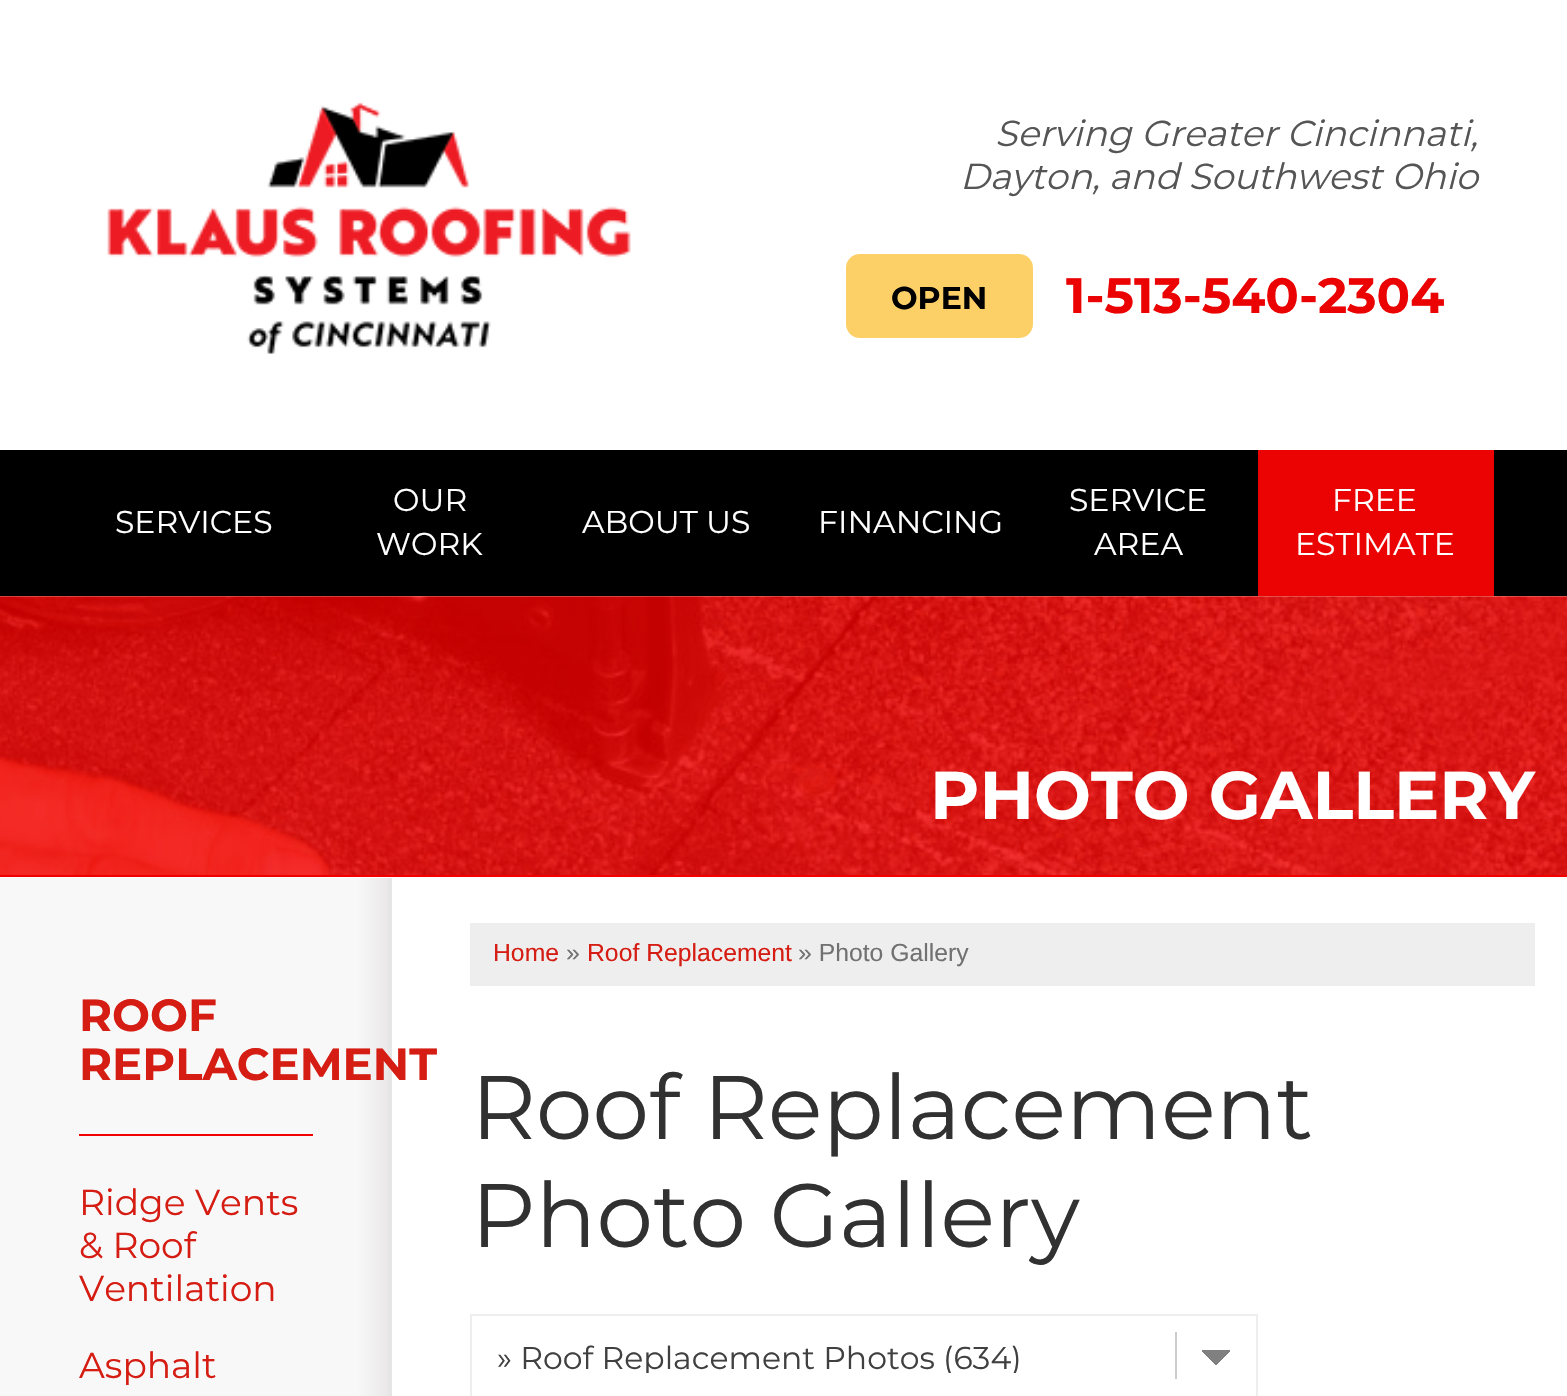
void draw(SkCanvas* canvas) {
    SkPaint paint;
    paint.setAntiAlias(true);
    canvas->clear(0xFFFFFFFF);
    canvas->drawImageRect(SkImages::DeferredFromEncodedData(SkData::MakeFromFileName("img1.png")), SkRect::MakeXYWH(107, 103, 524, 251), SkSamplingOptions());
    SkFont font1(fontMgr->matchFamilyStyle("Montserrat", SkFontStyle::Italic()), 36);
    font1.setSubpixel(true);
    paint.setColor(0xFF555555);
    canvas->drawString("Serving Greater Cincinnati,", 995, 146, font1, paint);
    canvas->drawString("Dayton, and Southwest Ohio", 960, 189, font1, paint);
    paint.setColor(0xFFFCD066);
    canvas->drawRoundRect(SkRect::MakeXYWH(846, 254, 187, 84), 14, 14, paint);
    SkFont font2(fontMgr->matchFamilyStyle("Montserrat", SkFontStyle::Bold()), 31.5f);
    font2.setSubpixel(true);
    paint.setColor(0xFF000000);
    canvas->drawString("OPEN", 891, 309, font2, paint);
    SkFont font3(fontMgr->matchFamilyStyle("Montserrat", SkFontStyle::Bold()), 49.5f);
    font3.setSubpixel(true);
    paint.setColor(0xFFEB0303);
    canvas->drawString("1-513-540-2304", 1066, 313, font3, paint);
    paint.setColor(0xFF000000);
    canvas->drawRect(SkRect::MakeXYWH(0, 450, 1567, 146), paint);
    SkFont font4(fontMgr->matchFamilyStyle("Montserrat", SkFontStyle::Normal()), 31.5f);
    font4.setSubpixel(true);
    paint.setColor(0xFFFFFFFF);
    canvas->drawString("SERVICES", 115, 533, font4, paint);
    canvas->drawString("OUR", 393, 511, font4, paint);
    canvas->drawString("WORK", 376, 555, font4, paint);
    canvas->drawString("ABOUT US", 582, 533, font4, paint);
    canvas->drawString("FINANCING", 818, 533, font4, paint);
    canvas->drawString("SERVICE", 1069, 511, font4, paint);
    canvas->drawString("AREA", 1094, 555, font4, paint);
    paint.setColor(0xFFEB0303);
    canvas->drawRect(SkRect::MakeXYWH(1258, 450, 236, 146), paint);
    paint.setColor(0xFFFFFFFF);
    canvas->drawString("FREE", 1332, 511, font4, paint);
    canvas->drawString("ESTIMATE", 1295, 555, font4, paint);
    canvas->drawImageRect(SkImages::DeferredFromEncodedData(SkData::MakeFromFileName("img2.png")), SkRect::MakeXYWH(0, 596, 1567, 279), SkSamplingOptions());
    paint.setColor(0xFFF20000);
    canvas->drawRect(SkRect::MakeXYWH(0, 875, 1567, 2), paint);
    SkFont font5(fontMgr->matchFamilyStyle("Montserrat", SkFontStyle::Bold()), 67.5f);
    font5.setSubpixel(true);
    paint.setColor(0xFFFFFFFF);
    canvas->drawString("PHOTO GALLERY", 930, 819, font5, paint);
    {
        const SkColor colors[] = {0xFFE6E6E6, 0xFFEAE8E8, 0xFFF8F8F8};
        const float stops[] = {0.01f, 0.01f, 0.09f};
        const SkPoint ends[] = {{392, 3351}, {0, 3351}};
        paint.setShader(SkGradientShader::MakeLinear(ends, colors, stops, 3, SkTileMode::kClamp));
        paint.setAlpha(255);
    }
    canvas->drawRect(SkRect::MakeXYWH(0, 878, 392, 518), paint);
    paint.setShader(nullptr);
    paint.setColor(0xFFEEEEEE);
    canvas->drawRect(SkRect::MakeXYWH(470, 923, 1065, 63), paint);
    SkFont font6(fontMgr->matchFamilyStyle("Liberation Sans", SkFontStyle::Normal()), 24.75f);
    font6.setSubpixel(true);
    paint.setColor(0xFFD51D13);
    canvas->drawString("Home", 493, 961, font6, paint);
    paint.setColor(0xFF717171);
    canvas->drawString("»", 566, 961, font6, paint);
    paint.setColor(0xFFD51D13);
    canvas->drawString("Roof Replacement", 587, 961, font6, paint);
    paint.setColor(0xFF717171);
    canvas->drawString("» Photo Gallery", 798, 961, font6, paint);
    SkFont font7(fontMgr->matchFamilyStyle("Montserrat", SkFontStyle::Normal()), 90);
    font7.setSubpixel(true);
    paint.setColor(0xFF313131);
    canvas->drawString("Roof Replacement", 471, 1139, font7, paint);
    canvas->drawString("Photo Gallery", 471, 1247, font7, paint);
    paint.setColor(0xFFCCCCCC);
    canvas->drawRect(SkRect::MakeXYWH(1175, 1332, 2, 47), paint);
    {
        const SkColor colors[] = {0xFF808080, 0xFFFFFFFF};
        const float stops[] = {0.5f, 0.5f};
        const SkPoint ends[] = {{1215, 1350}, {1231, 1366}};
        paint.setShader(SkGradientShader::MakeLinear(ends, colors, stops, 2, SkTileMode::kClamp));
        paint.setAlpha(255);
    }
    canvas->drawRect(SkRect::MakeXYWH(1215, 1350, 15, 15), paint);
    {
        const SkColor colors[] = {0xFFFFFFFF, 0xFF808080};
        const float stops[] = {0.5f, 0.5f};
        const SkPoint ends[] = {{1201, 1365}, {1216, 1351}};
        paint.setShader(SkGradientShader::MakeLinear(ends, colors, stops, 2, SkTileMode::kClamp));
        paint.setAlpha(255);
    }
    canvas->drawRect(SkRect::MakeXYWH(1202, 1350, 13, 14), paint);
    paint.setStyle(SkPaint::kStroke_Style);
    paint.setStrokeWidth(2);
    paint.setShader(nullptr);
    paint.setColor(0xFFEEEEEE);
    canvas->drawRect(SkRect::MakeXYWH(471, 1315, 786, 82), paint);
    canvas->save();
    canvas->clipRect(SkRect::MakeXYWH(497, 1341, 696, 32));
    paint.setStyle(SkPaint::kFill_Style);
    paint.setColor(0xFF404040);
    canvas->drawString("» Roof Replacement Photos (634)", 497, 1369, font4, paint);
    canvas->restore();
    SkFont font8(fontMgr->matchFamilyStyle("Montserrat", SkFontStyle::Bold()), 45);
    font8.setSubpixel(true);
    paint.setColor(0xFFD51D13);
    canvas->drawString("ROOF", 79, 1031, font8, paint);
    canvas->drawString("REPLACEMENT", 79, 1080, font8, paint);
    paint.setColor(0xFFF20000);
    canvas->drawRect(SkRect::MakeXYWH(79, 1134, 234, 2), paint);
    SkFont font9(fontMgr->matchFamilyStyle("Montserrat", SkFontStyle::Normal()), 36);
    font9.setSubpixel(true);
    paint.setColor(0xFFD51D13);
    canvas->drawString("Ridge Vents", 79, 1215, font9, paint);
    canvas->drawString("& Roof", 79, 1258, font9, paint);
    canvas->drawString("Ventilation", 79, 1301, font9, paint);
    canvas->drawString("Asphalt", 79, 1378, font9, paint);
}
